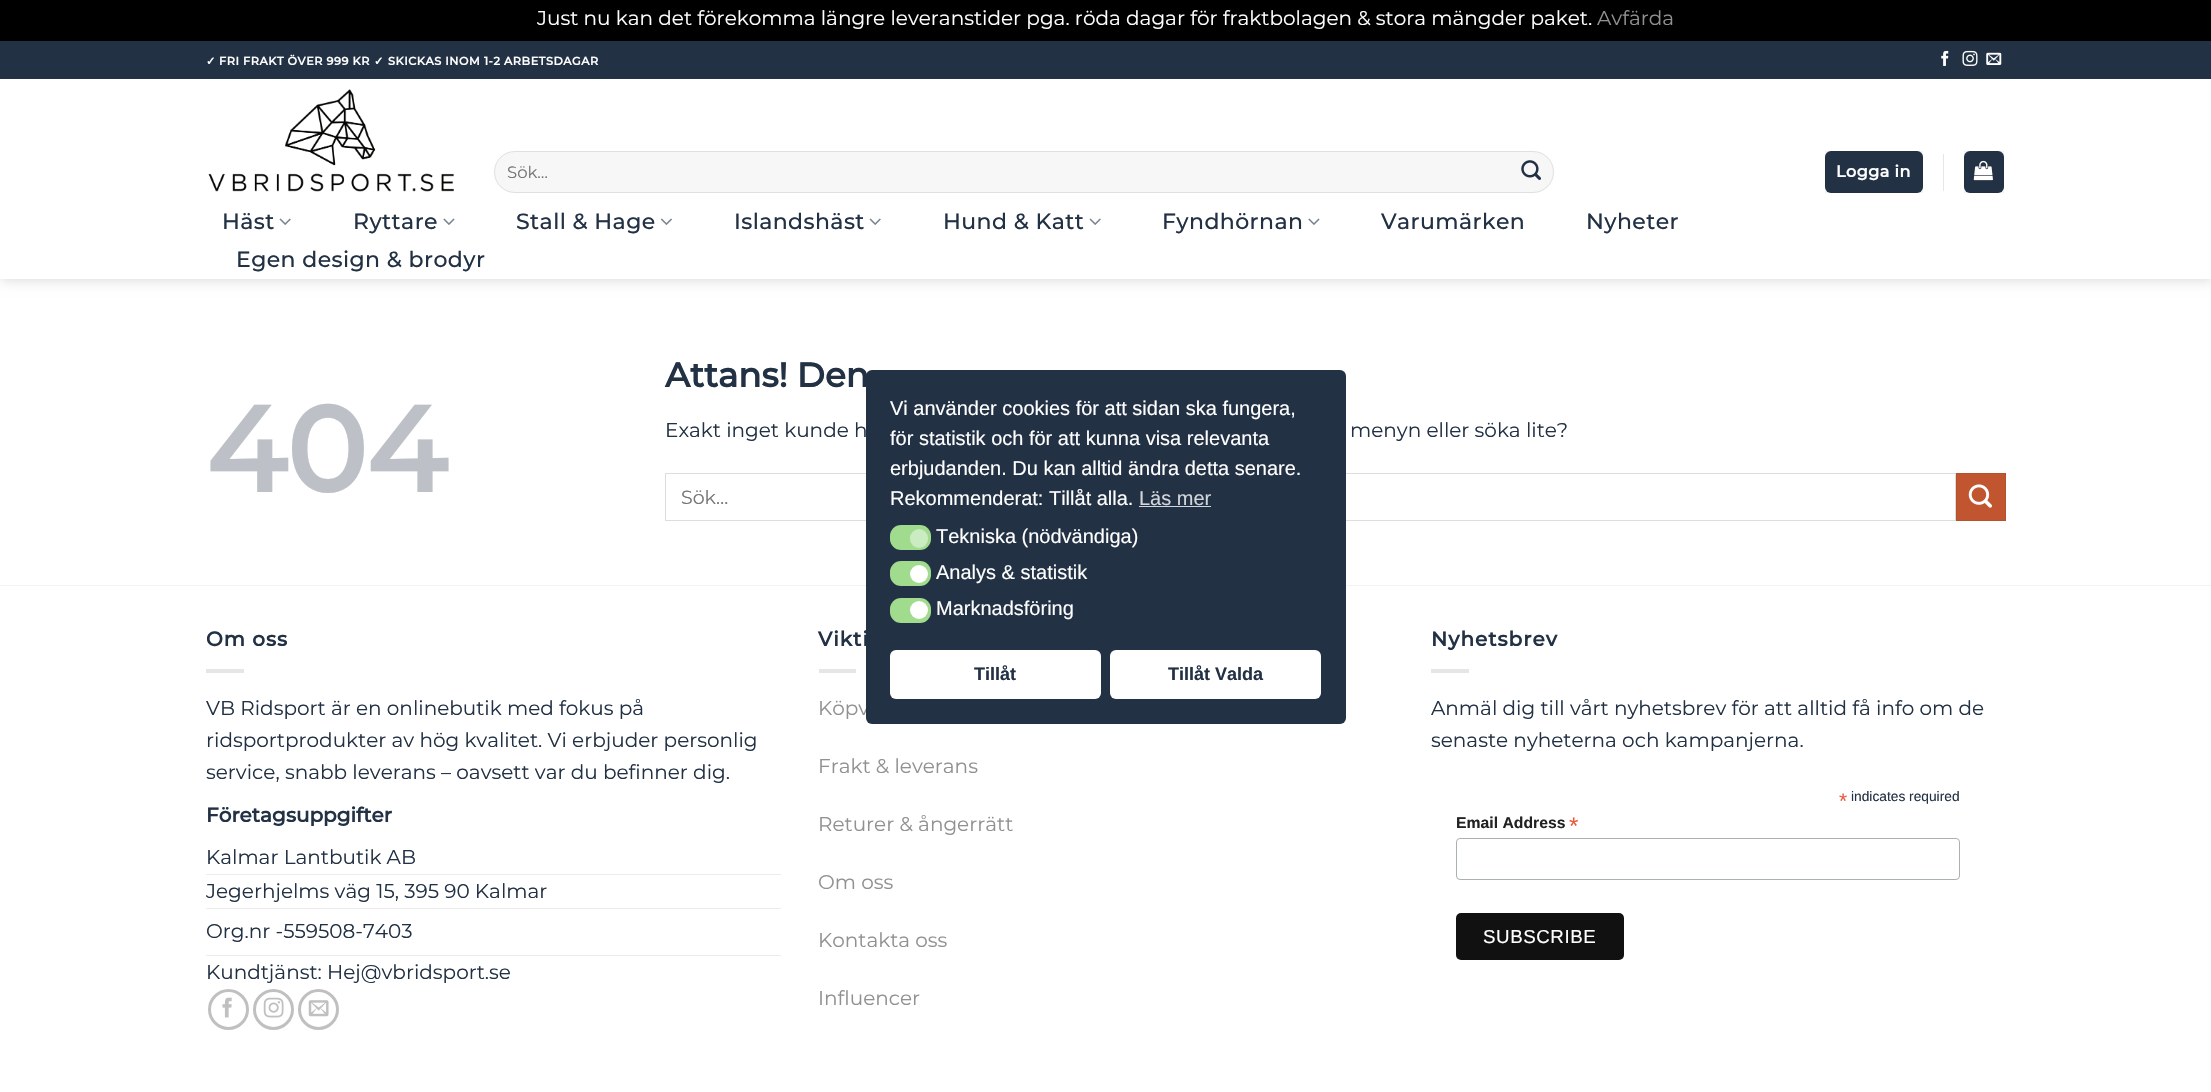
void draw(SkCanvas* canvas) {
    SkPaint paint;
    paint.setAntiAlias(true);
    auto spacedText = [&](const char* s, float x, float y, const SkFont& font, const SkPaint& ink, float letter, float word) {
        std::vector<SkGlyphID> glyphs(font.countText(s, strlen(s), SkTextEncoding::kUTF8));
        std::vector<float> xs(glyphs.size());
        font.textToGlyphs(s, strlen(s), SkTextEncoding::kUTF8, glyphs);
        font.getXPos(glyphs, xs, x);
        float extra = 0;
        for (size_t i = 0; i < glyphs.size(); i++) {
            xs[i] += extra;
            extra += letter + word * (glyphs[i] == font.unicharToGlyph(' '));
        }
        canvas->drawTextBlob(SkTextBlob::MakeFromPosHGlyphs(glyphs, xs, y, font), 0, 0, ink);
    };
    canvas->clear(0xFFFFFFFF);
    paint.setColor(0xFF000000);
    canvas->drawRect(SkRect::MakeXYWH(0, 0, 2211, 41), paint);
    SkFont font1(fontMgr->matchFamilyStyle("Montserrat", SkFontStyle::Normal()), 20);
    font1.setSubpixel(true);
    paint.setColor(0xFFFFFFFF);
    canvas->drawString("Just nu kan det förekomma längre leveranstider pga. röda dagar för fraktbolagen & stora mängder paket.", 537, 25, font1, paint);
    paint.setColor(0xFF919191);
    canvas->drawString("Avfärda", 1597, 25, font1, paint);
    paint.setColor(0x26000000);
    paint.setMaskFilter(SkMaskFilter::MakeBlur(kNormal_SkBlurStyle, 6));
    canvas->drawRect(SkRect::MakeXYWH(1, 43, 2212, 237), paint);
    paint.setMaskFilter(nullptr);
    paint.setColor(0xFF223144);
    canvas->drawRect(SkRect::MakeXYWH(0, 41, 2211, 38), paint);
    SkFont font2(fontMgr->matchFamilyStyle("DejaVu Sans", SkFontStyle::Bold()), 11.25f);
    font2.setSubpixel(true);
    paint.setColor(0xFFFFFFFF);
    spacedText("✓", 206, 65, font2, paint, 0.55f, 0);
    SkFont font3(fontMgr->matchFamilyStyle("Montserrat", SkFontStyle::Bold()), 11.25f);
    font3.setSubpixel(true);
    spacedText("FRI FRAKT ÖVER 999 KR", 219, 65, font3, paint, 0.55f, 0);
    spacedText("✓", 374, 65, font2, paint, 0.55f, 0);
    spacedText("SKICKAS INOM 1-2 ARBETSDAGAR", 388, 65, font3, paint, 0.55f, 0);
    canvas->drawImageRect(SkImages::DeferredFromEncodedData(SkData::MakeFromFileName("img1.png")), SkRect::MakeXYWH(1941, 50, 8, 16), SkSamplingOptions());
    canvas->drawImageRect(SkImages::DeferredFromEncodedData(SkData::MakeFromFileName("img2.png")), SkRect::MakeXYWH(1962, 50, 16, 16), SkSamplingOptions());
    canvas->drawImageRect(SkImages::DeferredFromEncodedData(SkData::MakeFromFileName("img3.png")), SkRect::MakeXYWH(1986, 52, 16, 13), SkSamplingOptions());
    canvas->drawRect(SkRect::MakeXYWH(0, 79, 2211, 200), paint);
    canvas->drawImageRect(SkImages::DeferredFromEncodedData(SkData::MakeFromFileName("img4.png")), SkRect::MakeXYWH(208, 89, 246, 103), SkSamplingOptions());
    paint.setColor(0xFFF7F7F7);
    canvas->drawRoundRect(SkRect::MakeXYWH(494, 151, 1060, 42), 21, 21, paint);
    paint.setStyle(SkPaint::kStroke_Style);
    paint.setStrokeWidth(1);
    paint.setColor(0x17000000);
    canvas->drawRoundRect(SkRect::MakeXYWH(494.5f, 151.5f, 1059, 41), 20.5f, 20.5f, paint);
    SkFont font4(fontMgr->matchFamilyStyle("Montserrat", SkFontStyle::Normal()), 16.5f);
    font4.setSubpixel(true);
    paint.setStyle(SkPaint::kFill_Style);
    paint.setColor(0xFF757575);
    canvas->drawString("Sök…", 507, 178, font4, paint);
    canvas->drawImageRect(SkImages::DeferredFromEncodedData(SkData::MakeFromFileName("img5.png")), SkRect::MakeXYWH(1521, 160, 20, 20), SkSamplingOptions());
    paint.setColor(0xFF223144);
    canvas->drawRoundRect(SkRect::MakeXYWH(1825, 151, 98, 42), 6, 6, paint);
    paint.setStyle(SkPaint::kStroke_Style);
    paint.setColor(0x0D000000);
    canvas->drawRect(SkRect::MakeXYWH(1825.5f, 151.5f, 97, 41), paint);
    SkFont font5(fontMgr->matchFamilyStyle("Montserrat", SkFontStyle::Bold()), 16);
    font5.setSubpixel(true);
    paint.setStyle(SkPaint::kFill_Style);
    paint.setColor(0xFFFFFFFF);
    spacedText("Logga in", 1836, 177, font5, paint, 0.5f, 0);
    paint.setColor(0xFFE6E6E6);
    canvas->drawRect(SkRect::MakeXYWH(1943, 154, 1, 37), paint);
    paint.setColor(0xFF223144);
    canvas->drawRoundRect(SkRect::MakeXYWH(1964, 151, 40, 42), 6, 6, paint);
    paint.setStyle(SkPaint::kStroke_Style);
    paint.setColor(0x0D000000);
    canvas->drawRect(SkRect::MakeXYWH(1964.5f, 151.5f, 39, 41), paint);
    canvas->drawImageRect(SkImages::DeferredFromEncodedData(SkData::MakeFromFileName("img6.png")), SkRect::MakeXYWH(1973, 160, 20, 21), SkSamplingOptions());
    SkFont font6(fontMgr->matchFamilyStyle("Montserrat", SkFontStyle(500, SkFontStyle::kNormal_Width, SkFontStyle::kUpright_Slant)), 22);
    font6.setSubpixel(true);
    paint.setStyle(SkPaint::kFill_Style);
    paint.setColor(0xFF223144);
    spacedText("Häst", 222, 229, font6, paint, 0.4f, 0);
    canvas->drawImageRect(SkImages::DeferredFromEncodedData(SkData::MakeFromFileName("img7.png")), SkRect::MakeXYWH(279, 218, 12, 7), SkSamplingOptions());
    spacedText("Ryttare", 353, 229, font6, paint, 0.4f, 0);
    canvas->drawImageRect(SkImages::DeferredFromEncodedData(SkData::MakeFromFileName("img8.png")), SkRect::MakeXYWH(443, 218, 12, 7), SkSamplingOptions());
    spacedText("Stall & Hage", 516, 229, font6, paint, 0.4f, 0);
    canvas->drawImageRect(SkImages::DeferredFromEncodedData(SkData::MakeFromFileName("img9.png")), SkRect::MakeXYWH(660, 218, 12, 7), SkSamplingOptions());
    spacedText("Islandshäst", 734, 229, font6, paint, 0.4f, 0);
    canvas->drawImageRect(SkImages::DeferredFromEncodedData(SkData::MakeFromFileName("img7.png")), SkRect::MakeXYWH(869, 218, 12, 7), SkSamplingOptions());
    spacedText("Hund & Katt", 943, 229, font6, paint, 0.4f, 0);
    canvas->drawImageRect(SkImages::DeferredFromEncodedData(SkData::MakeFromFileName("img7.png")), SkRect::MakeXYWH(1089, 218, 12, 7), SkSamplingOptions());
    spacedText("Fyndhörnan", 1162, 229, font6, paint, 0.4f, 0);
    canvas->drawImageRect(SkImages::DeferredFromEncodedData(SkData::MakeFromFileName("img8.png")), SkRect::MakeXYWH(1308, 218, 12, 7), SkSamplingOptions());
    spacedText("Varumärken", 1381, 229, font6, paint, 0.4f, 0);
    spacedText("Nyheter", 1586, 229, font6, paint, 0.4f, 0);
    spacedText("Egen design & brodyr", 236, 267, font6, paint, 0.4f, 0);
    SkFont font7(fontMgr->matchFamilyStyle("Montserrat", SkFontStyle::Bold()), 120);
    font7.setSubpixel(true);
    paint.setColor(0xFFBDC1C7);
    canvas->drawString("404", 206, 492, font7, paint);
    SkFont font8(fontMgr->matchFamilyStyle("Montserrat", SkFontStyle::Bold()), 34);
    font8.setSubpixel(true);
    paint.setColor(0xFF223144);
    canvas->drawString("Attans! Den", 665, 387, font8, paint);
    canvas->drawString("Exakt inget kunde h", 665, 437, font1, paint);
    canvas->drawString("menyn eller söka lite?", 1350, 437, font1, paint);
    paint.setStyle(SkPaint::kStroke_Style);
    paint.setColor(0xFFDDDDDD);
    canvas->drawRect(SkRect::MakeXYWH(665.5f, 473.5f, 1290, 47), paint);
    SkFont font9(fontMgr->matchFamilyStyle("Montserrat", SkFontStyle::Normal()), 19);
    font9.setSubpixel(true);
    paint.setStyle(SkPaint::kFill_Style);
    paint.setColor(0xFF757575);
    canvas->drawString("Sök…", 681, 504, font9, paint);
    paint.setColor(0xFFC05530);
    canvas->drawRect(SkRect::MakeXYWH(1956.5f, 473.5f, 49, 47), paint);
    paint.setStyle(SkPaint::kStroke_Style);
    paint.setColor(0xFFB6512E);
    canvas->drawRect(SkRect::MakeXYWH(1956.5f, 473.5f, 49, 47), paint);
    canvas->drawImageRect(SkImages::DeferredFromEncodedData(SkData::MakeFromFileName("img10.png")), SkRect::MakeXYWH(1968, 484, 24, 24), SkSamplingOptions());
    paint.setStyle(SkPaint::kFill_Style);
    paint.setColor(0xFFF2F2F2);
    canvas->drawRect(SkRect::MakeXYWH(0, 585, 2211, 1), paint);
    SkFont font10(fontMgr->matchFamilyStyle("Montserrat", SkFontStyle::Bold()), 20);
    font10.setSubpixel(true);
    paint.setColor(0xFF223144);
    spacedText("Om oss", 206, 646, font10, paint, 1, 0);
    paint.setColor(0xFFE6E6E6);
    canvas->drawRect(SkRect::MakeXYWH(206, 669, 38, 4), paint);
    paint.setColor(0xFF223144);
    canvas->drawString("VB Ridsport är en onlinebutik med fokus på", 206, 715, font1, paint);
    canvas->drawString("ridsportprodukter av hög kvalitet. Vi erbjuder personlig", 206, 747, font1, paint);
    canvas->drawString("service, snabb leverans – oavsett var du befinner dig.", 206, 779, font1, paint);
    canvas->drawString("Företagsuppgifter", 206, 822, font10, paint);
    canvas->drawString("Kalmar Lantbutik AB", 206, 864, font1, paint);
    paint.setColor(0xFFECECEC);
    canvas->drawRect(SkRect::MakeXYWH(206, 874, 575, 1), paint);
    paint.setColor(0xFF223144);
    canvas->drawString("Jegerhjelms väg 15, 395 90 Kalmar", 206, 898, font1, paint);
    paint.setColor(0xFFECECEC);
    canvas->drawRect(SkRect::MakeXYWH(206, 908, 575, 1), paint);
    paint.setColor(0xFF223144);
    canvas->drawString("Org.nr -559508-7403", 206, 938, font1, paint);
    paint.setColor(0xFFECECEC);
    canvas->drawRect(SkRect::MakeXYWH(206, 955, 575, 1), paint);
    paint.setColor(0xFF223144);
    canvas->drawString("Kundtjänst: Hej@vbridsport.se", 206, 979, font1, paint);
    paint.setStyle(SkPaint::kStroke_Style);
    paint.setStrokeWidth(3);
    paint.setColor(0xFFC0C0C0);
    canvas->drawCircle(228.5f, 1009.5f, 19, paint);
    canvas->drawImageRect(SkImages::DeferredFromEncodedData(SkData::MakeFromFileName("img11.png")), SkRect::MakeXYWH(222, 997, 10, 21), SkSamplingOptions());
    canvas->drawCircle(273.5f, 1009.5f, 19, paint);
    canvas->drawImageRect(SkImages::DeferredFromEncodedData(SkData::MakeFromFileName("img12.png")), SkRect::MakeXYWH(263, 997, 21, 21), SkSamplingOptions());
    canvas->drawCircle(318.5f, 1009.5f, 19, paint);
    canvas->drawImageRect(SkImages::DeferredFromEncodedData(SkData::MakeFromFileName("img13.png")), SkRect::MakeXYWH(308, 1000, 21, 17), SkSamplingOptions());
    paint.setStyle(SkPaint::kFill_Style);
    paint.setColor(0xFF223144);
    spacedText("Vikti", 818, 646, font10, paint, 1, 0);
    paint.setColor(0xFFE6E6E6);
    canvas->drawRect(SkRect::MakeXYWH(819, 669, 37, 4), paint);
    paint.setColor(0xFF919191);
    canvas->drawString("Köpv", 818, 715, font1, paint);
    canvas->drawString("Frakt & leverans", 818, 773, font1, paint);
    canvas->drawString("Returer & ångerrätt", 818, 831, font1, paint);
    canvas->drawString("Om oss", 818, 889, font1, paint);
    canvas->drawString("Kontakta oss", 818, 947, font1, paint);
    canvas->drawString("Influencer", 818, 1005, font1, paint);
    paint.setColor(0xFF223144);
    spacedText("Nyhetsbrev", 1431, 646, font10, paint, 1, 0);
    paint.setColor(0xFFE6E6E6);
    canvas->drawRect(SkRect::MakeXYWH(1431, 669, 38, 4), paint);
    paint.setColor(0xFF223144);
    canvas->drawString("Anmäl dig till vårt nyhetsbrev för att alltid få info om de", 1431, 715, font1, paint);
    canvas->drawString("senaste nyheterna och kampanjerna.", 1431, 747, font1, paint);
    SkFont font11(fontMgr->matchFamilyStyle("Liberation Sans", SkFontStyle::Normal()), 21);
    font11.setSubpixel(true);
    paint.setColor(0xFFE85C41);
    canvas->drawString("*", 1839, 808, font11, paint);
    SkFont font12(fontMgr->matchFamilyStyle("Liberation Sans", SkFontStyle::Normal()), 13.75f);
    font12.setSubpixel(true);
    paint.setColor(0xFF223144);
    canvas->drawString("indicates required", 1851, 801, font12, paint);
    SkFont font13(fontMgr->matchFamilyStyle("Liberation Sans", SkFontStyle::Bold()), 15.75f);
    font13.setSubpixel(true);
    paint.setColor(0xFF222222);
    canvas->drawString("Email Address", 1456, 828, font13, paint);
    SkFont font14(fontMgr->matchFamilyStyle("Liberation Sans", SkFontStyle::Normal()), 24);
    font14.setSubpixel(true);
    paint.setColor(0xFFE85C41);
    canvas->drawString("*", 1569, 834, font14, paint);
    paint.setStyle(SkPaint::kStroke_Style);
    paint.setStrokeWidth(1);
    paint.setColor(0xFFABB0B2);
    canvas->drawRoundRect(SkRect::MakeXYWH(1456.5f, 838.5f, 503, 41), 3.5f, 3.5f, paint);
    paint.setStyle(SkPaint::kFill_Style);
    paint.setColor(0xFF111111);
    canvas->drawRoundRect(SkRect::MakeXYWH(1456, 913, 168, 47), 5, 5, paint);
    SkFont font15(fontMgr->matchFamilyStyle("Liberation Sans", SkFontStyle::Normal()), 18.75f);
    font15.setSubpixel(true);
    paint.setColor(0xFFFFFFFF);
    spacedText("SUBSCRIBE", 1483, 943, font15, paint, 0.55f, 0);
    paint.setColor(0xFF223144);
    canvas->drawRoundRect(SkRect::MakeXYWH(866, 370, 480, 354), 6, 6, paint);
    SkFont font16(fontMgr->matchFamilyStyle("Liberation Sans", SkFontStyle::Normal()), 20);
    font16.setSubpixel(true);
    paint.setColor(0xFFFFFFFF);
    canvas->drawString("Vi använder cookies för att sidan ska fungera,", 890, 415, font16, paint);
    canvas->drawString("för statistik och för att kunna visa relevanta", 890, 445, font16, paint);
    canvas->drawString("erbjudanden. Du kan alltid ändra detta senare.", 890, 475, font16, paint);
    canvas->drawString("Rekommenderat: Tillåt alla.", 890, 505, font16, paint);
    paint.setColor(0xFFD3D6DA);
    canvas->drawString("Läs mer", 1139, 505, font16, paint);
    canvas->drawRect(SkRect::MakeXYWH(1139, 506, 72, 1), paint);
    paint.setColor(0xFFA0DB8E);
    canvas->drawRoundRect(SkRect::MakeXYWH(890, 525, 41, 25), 11, 11, paint);
    paint.setColor(0xFFCBEBC1);
    canvas->drawRoundRect(SkRect::MakeXYWH(910, 529, 18, 19), 9, 9, paint);
    paint.setColor(0xFFFFFFFF);
    canvas->drawString("Tekniska (nödvändiga)", 936, 543, font16, paint);
    paint.setColor(0xFFA0DB8E);
    canvas->drawRoundRect(SkRect::MakeXYWH(890, 561, 41, 25), 11, 11, paint);
    paint.setColor(0xFFFFFFFF);
    canvas->drawCircle(919, 574, 9, paint);
    canvas->drawString("Analys & statistik", 936, 579, font16, paint);
    paint.setColor(0xFFA0DB8E);
    canvas->drawRoundRect(SkRect::MakeXYWH(890, 598, 41, 25), 11, 11, paint);
    paint.setColor(0xFFFFFFFF);
    canvas->drawCircle(919, 610, 9, paint);
    canvas->drawString("Marknadsföring", 936, 615, font16, paint);
    canvas->drawRoundRect(SkRect::MakeXYWH(890, 650, 211, 49), 6, 6, paint);
    SkFont font17(fontMgr->matchFamilyStyle("Liberation Sans", SkFontStyle::Bold()), 18);
    font17.setSubpixel(true);
    paint.setColor(0xFF223144);
    canvas->drawString("Tillåt", 974, 680, font17, paint);
    paint.setColor(0xFFFFFFFF);
    canvas->drawRoundRect(SkRect::MakeXYWH(1110, 650, 211, 49), 6, 6, paint);
    paint.setColor(0xFF223144);
    canvas->drawString("Tillåt Valda", 1168, 680, font17, paint);
}
